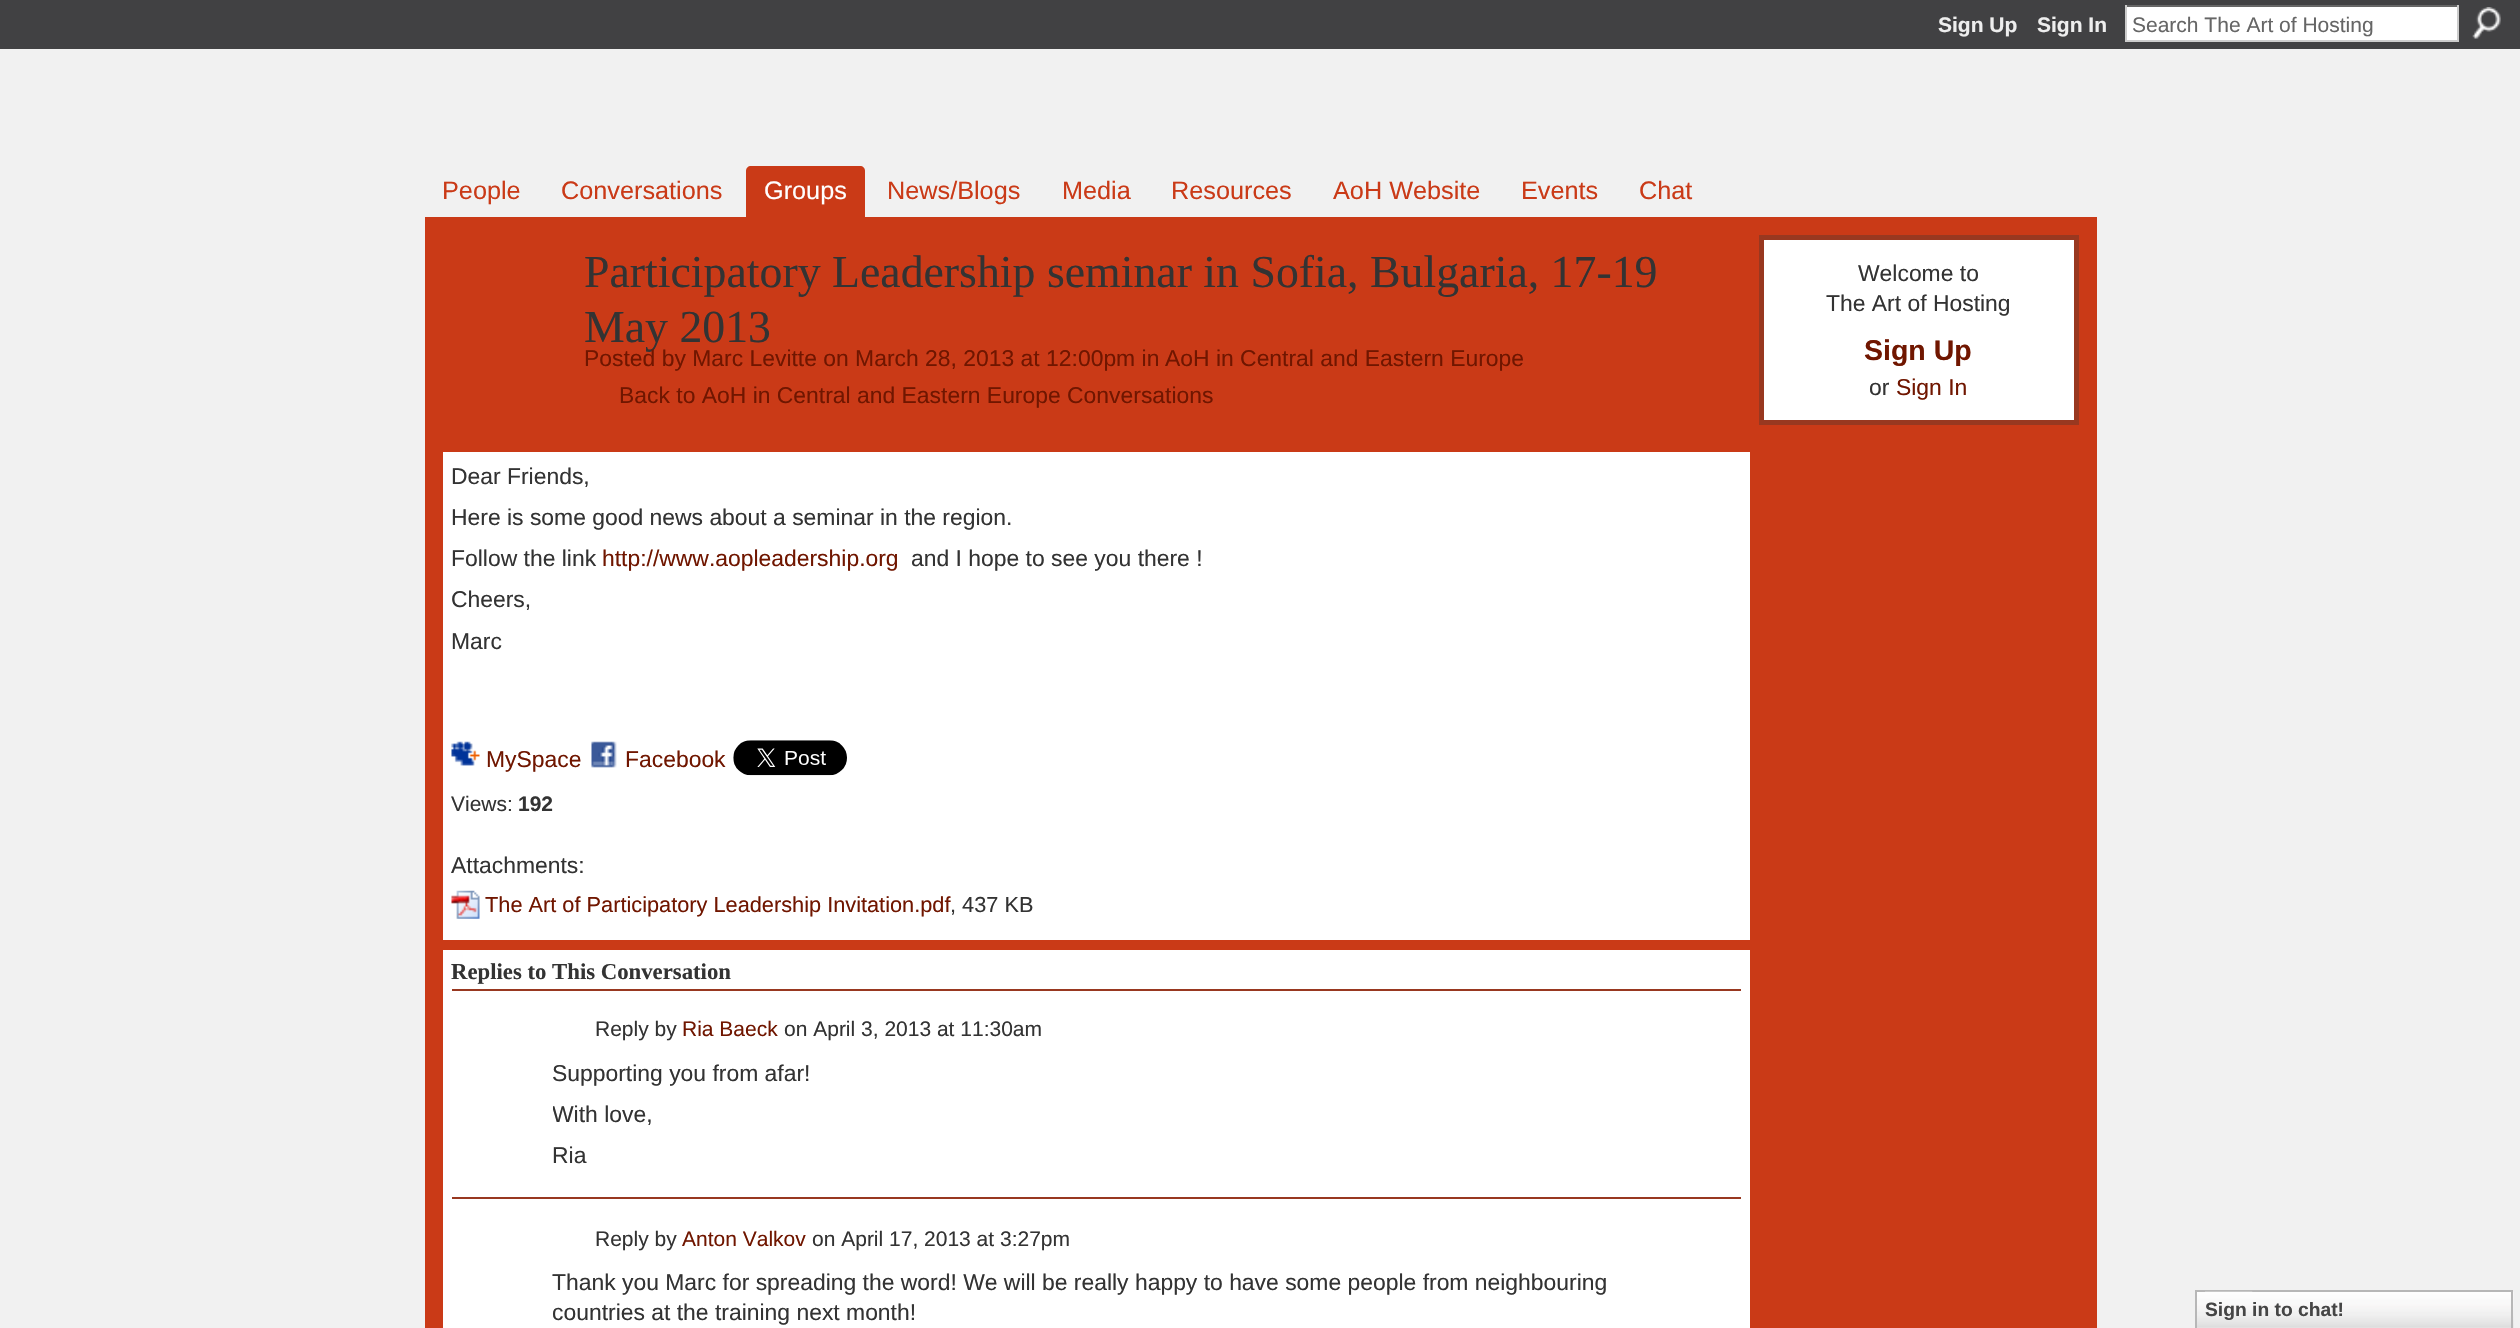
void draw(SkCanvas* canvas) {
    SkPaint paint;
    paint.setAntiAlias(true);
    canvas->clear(0xFFF1F1F1);
    paint.setColor(0xFF414143);
    canvas->drawRect(SkRect::MakeXYWH(0, 0, 2520, 49), paint);
    SkFont font1(fontMgr->matchFamilyStyle("Liberation Sans", SkFontStyle::Bold()), 21);
    font1.setSubpixel(true);
    paint.setColor(0xFFEEEEEE);
    canvas->drawString("Sign Up", 1938, 32, font1, paint);
    canvas->drawString("Sign In", 2037, 32, font1, paint);
    paint.setColor(0xFFFFFFFF);
    canvas->drawRect(SkRect::MakeXYWH(2127, 7, 330, 33), paint);
    paint.setColor(0xFF666666);
    canvas->drawRect(SkRect::MakeXYWH(2125, 5, 334, 2), paint);
    paint.setColor(0xFFCCCCCC);
    canvas->drawRect(SkRect::MakeXYWH(2457, 5, 2, 37), paint);
    canvas->drawRect(SkRect::MakeXYWH(2125, 40, 334, 2), paint);
    canvas->drawRect(SkRect::MakeXYWH(2125, 5, 2, 37), paint);
    SkFont font2(fontMgr->matchFamilyStyle("Liberation Sans", SkFontStyle::Normal()), 21);
    font2.setSubpixel(true);
    paint.setColor(0xFF666666);
    canvas->drawString("Search The Art of Hosting", 2132, 32, font2, paint);
    canvas->drawImageRect(SkImages::DeferredFromEncodedData(SkData::MakeFromFileName("img1.png")), SkRect::MakeXYWH(2472, 7, 29, 32), SkSamplingOptions());
    SkFont font3(fontMgr->matchFamilyStyle("Liberation Sans", SkFontStyle::Normal()), 25.25f);
    font3.setSubpixel(true);
    paint.setColor(0xFFCA3A17);
    canvas->drawString("People", 442, 199, font3, paint);
    canvas->drawString("Conversations", 561, 199, font3, paint);
    canvas->drawPath(SkPathBuilder().moveTo(751, 166).lineTo(860, 166).cubicTo(863, 166, 865, 168, 865, 171).lineTo(865, 217).lineTo(746, 217).lineTo(746, 171).cubicTo(746, 168, 748, 166, 751, 166).close().detach(), paint);
    paint.setColor(0xFFFFFFFF);
    canvas->drawString("Groups", 764, 199, font3, paint);
    paint.setColor(0xFFCA3A17);
    canvas->drawString("News/Blogs", 887, 199, font3, paint);
    canvas->drawString("Media", 1062, 199, font3, paint);
    canvas->drawString("Resources", 1171, 199, font3, paint);
    canvas->drawString("AoH Website", 1333, 199, font3, paint);
    canvas->drawString("Events", 1521, 199, font3, paint);
    canvas->drawString("Chat", 1639, 199, font3, paint);
    canvas->drawRect(SkRect::MakeXYWH(425, 217, 1672, 1111), paint);
    SkFont font4(fontMgr->matchFamilyStyle("Liberation Serif", SkFontStyle::Normal()), 45.8f);
    font4.setSubpixel(true);
    paint.setColor(0xFF333333);
    canvas->drawString("Participatory Leadership seminar in Sofia, Bulgaria, 17-19", 584, 287, font4, paint);
    canvas->drawString("May 2013", 584, 342, font4, paint);
    SkFont font5(fontMgr->matchFamilyStyle("Liberation Sans", SkFontStyle::Normal()), 22.9f);
    font5.setSubpixel(true);
    paint.setColor(0xFF701600);
    canvas->drawString("Posted by Marc Levitte on March 28, 2013 at 12:00pm in", 584, 366, font5, paint);
    canvas->drawString("AoH in Central and Eastern Europe", 1165, 366, font5, paint);
    canvas->drawString("Back to AoH in Central and Eastern Europe Conversations", 619, 403, font5, paint);
    paint.setColor(0xFFFFFFFF);
    canvas->drawRect(SkRect::MakeXYWH(443, 452, 1307, 488), paint);
    paint.setColor(0xFF333333);
    canvas->drawString("Dear Friends,", 451, 484, font5, paint);
    canvas->drawString("Here is some good news about a seminar in the region.", 451, 525, font5, paint);
    canvas->drawString("Follow the link", 451, 566, font5, paint);
    paint.setColor(0xFF701600);
    canvas->drawString("http://www.aopleadership.org", 602, 566, font5, paint);
    paint.setColor(0xFF333333);
    canvas->drawString("and I hope to see you there !", 911, 566, font5, paint);
    canvas->save();
    canvas->clipRect(SkRect::MakeXYWH(452, 460, 1289, 265));
    canvas->drawString("Cheers,", 451, 607, font5, paint);
    canvas->restore();
    canvas->drawString("Marc", 451, 649, font5, paint);
    canvas->drawImageRect(SkImages::DeferredFromEncodedData(SkData::MakeFromFileName("img2.png")), SkRect::MakeXYWH(451, 741, 29, 25), SkSamplingOptions());
    paint.setColor(0xFF701600);
    canvas->drawString("MySpace", 486, 767, font5, paint);
    canvas->drawImageRect(SkImages::DeferredFromEncodedData(SkData::MakeFromFileName("img3.png")), SkRect::MakeXYWH(591, 741, 26, 27), SkSamplingOptions());
    canvas->drawString("Facebook", 625, 767, font5, paint);
    canvas->drawImageRect(SkImages::DeferredFromEncodedData(SkData::MakeFromFileName("img4.png")), SkRect::MakeXYWH(733, 740, 114, 36), SkSamplingOptions());
    paint.setColor(0xFF333333);
    canvas->drawString("Views:", 451, 811, font2, paint);
    canvas->drawString("192", 518, 811, font1, paint);
    canvas->drawString("Attachments:", 451, 873, font5, paint);
    canvas->drawImageRect(SkImages::DeferredFromEncodedData(SkData::MakeFromFileName("img5.png")), SkRect::MakeXYWH(451, 890, 29, 29), SkSamplingOptions());
    SkFont font6(fontMgr->matchFamilyStyle("Liberation Sans", SkFontStyle::Normal()), 21.75f);
    font6.setSubpixel(true);
    paint.setColor(0xFF701600);
    canvas->drawString("The Art of Participatory Leadership Invitation.pdf", 485, 912, font6, paint);
    paint.setColor(0xFF333333);
    canvas->drawString(", 437 KB", 950, 912, font6, paint);
    paint.setColor(0xFFFFFFFF);
    canvas->drawRect(SkRect::MakeXYWH(443, 950, 1307, 378), paint);
    SkFont font7(fontMgr->matchFamilyStyle("Liberation Serif", SkFontStyle::Bold()), 22.75f);
    font7.setSubpixel(true);
    paint.setColor(0xFF333333);
    canvas->drawString("Replies to This Conversation", 451, 979, font7, paint);
    paint.setColor(0xFF983820);
    canvas->drawRect(SkRect::MakeXYWH(452, 989, 1289, 2), paint);
    paint.setColor(0xFF333333);
    canvas->drawString("Reply by", 595, 1036, font2, paint);
    paint.setColor(0xFF701600);
    canvas->drawString("Ria Baeck", 682, 1036, font2, paint);
    paint.setColor(0xFF333333);
    canvas->drawString("on April 3, 2013 at 11:30am", 784, 1036, font2, paint);
    canvas->drawString("Supporting you from afar!", 552, 1081, font5, paint);
    canvas->save();
    canvas->clipRect(SkRect::MakeXYWH(553, 1059, 1127, 112));
    canvas->drawString("With love,", 552, 1122, font5, paint);
    canvas->restore();
    canvas->drawString("Ria", 552, 1163, font5, paint);
    paint.setColor(0xFF983820);
    canvas->drawRect(SkRect::MakeXYWH(452, 1197, 1289, 2), paint);
    paint.setColor(0xFF333333);
    canvas->drawString("Reply by", 595, 1246, font2, paint);
    paint.setColor(0xFF701600);
    canvas->drawString("Anton Valkov", 682, 1246, font2, paint);
    paint.setColor(0xFF333333);
    canvas->drawString("on April 17, 2013 at 3:27pm", 812, 1246, font2, paint);
    canvas->drawString("Thank you Marc for spreading the word! We will be really happy to have some people from neighbouring", 552, 1290, font5, paint);
    canvas->drawString("countries at the training next month!", 552, 1320, font5, paint);
    paint.setColor(0xFFFFFFFF);
    canvas->drawRect(SkRect::MakeXYWH(1761.5f, 237.5f, 315, 185), paint);
    paint.setStyle(SkPaint::kStroke_Style);
    paint.setStrokeWidth(5);
    paint.setColor(0xFF983820);
    canvas->drawRect(SkRect::MakeXYWH(1761.5f, 237.5f, 315, 185), paint);
    paint.setStyle(SkPaint::kFill_Style);
    paint.setColor(0xFF333333);
    canvas->drawString("Welcome to", 1858, 281, font5, paint);
    canvas->drawString("The Art of Hosting", 1826, 311, font5, paint);
    SkFont font8(fontMgr->matchFamilyStyle("Liberation Sans", SkFontStyle::Bold()), 28.5f);
    font8.setSubpixel(true);
    paint.setColor(0xFF701600);
    canvas->drawString("Sign Up", 1864, 360, font8, paint);
    paint.setColor(0xFF333333);
    canvas->drawString("or", 1869, 395, font5, paint);
    paint.setColor(0xFF701600);
    canvas->drawString("Sign In", 1896, 395, font5, paint);
    canvas->drawImageRect(SkImages::DeferredFromEncodedData(SkData::MakeFromFileName("img6.png")), SkRect::MakeXYWH(2197, 1291, 317, 37), SkSamplingOptions());
    paint.setStyle(SkPaint::kStroke_Style);
    paint.setStrokeWidth(2);
    paint.setColor(0xFFB7B7B7);
    canvas->drawRect(SkRect::MakeXYWH(2196, 1291, 316, 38), paint);
    canvas->drawImageRect(SkImages::DeferredFromEncodedData(SkData::MakeFromFileName("img7.png")), SkRect::MakeXYWH(2205, 1291, 48, 1), SkSamplingOptions());
    SkFont font9(fontMgr->matchFamilyStyle("Liberation Sans", SkFontStyle::Bold()), 19.25f);
    font9.setSubpixel(true);
    paint.setStyle(SkPaint::kFill_Style);
    paint.setColor(0xFF454545);
    canvas->drawString("Sign in to chat!", 2205, 1316, font9, paint);
}
